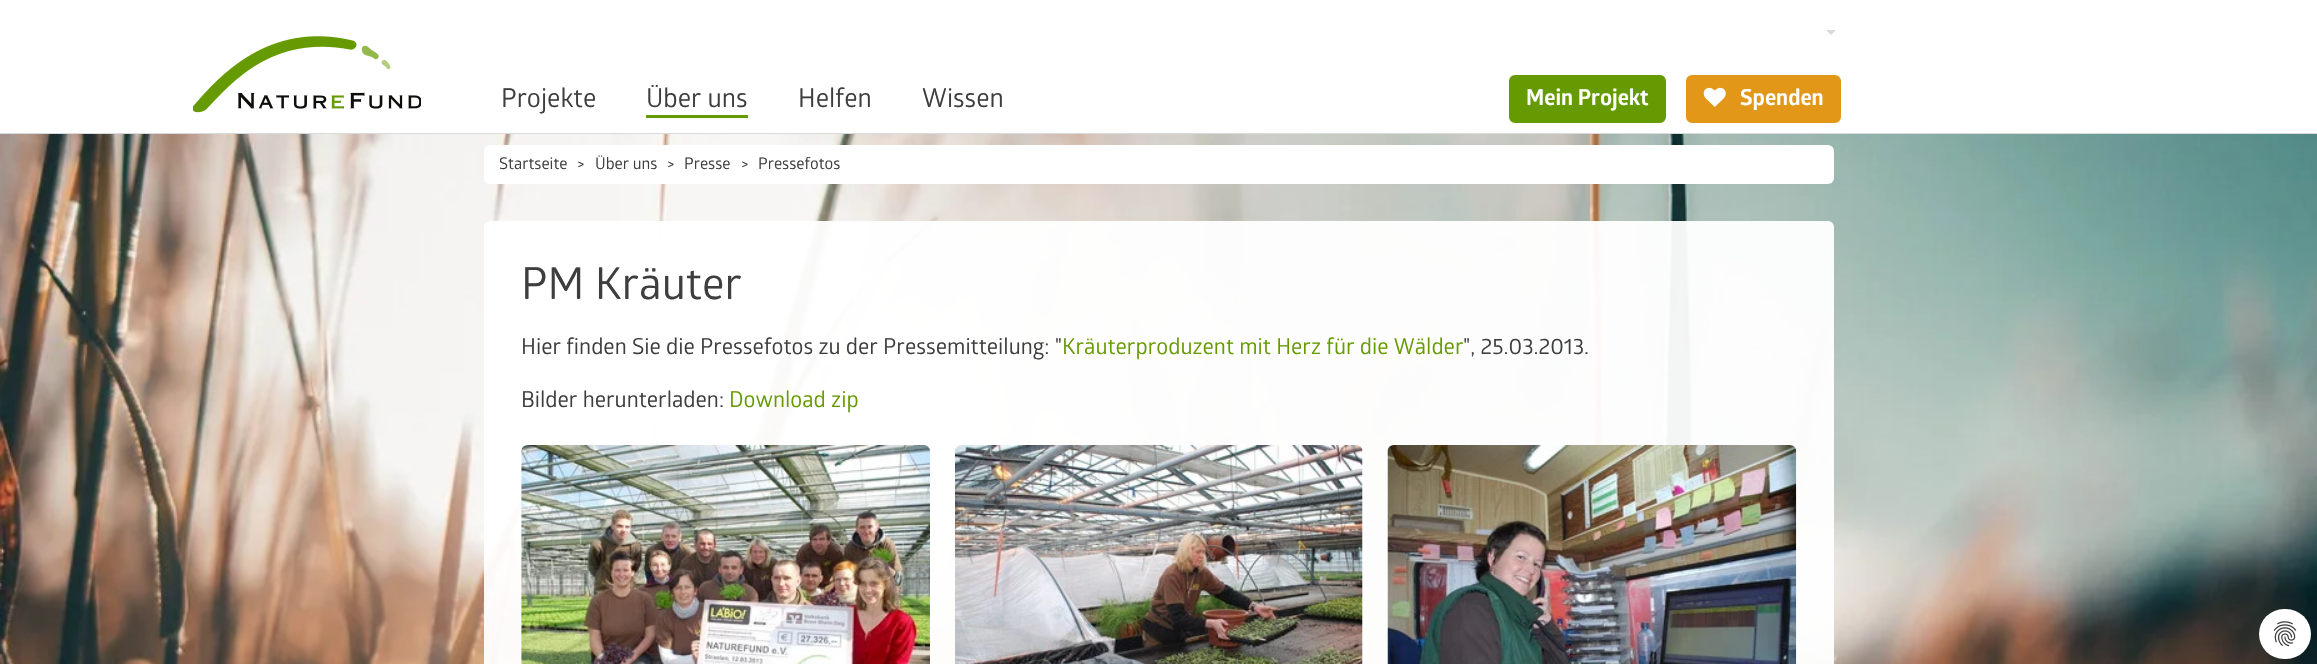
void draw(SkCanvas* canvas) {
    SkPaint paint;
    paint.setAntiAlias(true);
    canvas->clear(0xFFFFFFFF);
    paint.setColor(0xFFD9DADC);
    canvas->drawRect(SkRect::MakeXYWH(0, 133, 2317, 1), paint);
    canvas->drawImageRect(SkImages::DeferredFromEncodedData(SkData::MakeFromFileName("img1.png")), SkRect::MakeXYWH(193, 36, 228, 77), SkSamplingOptions());
    canvas->drawPath(SkPathBuilder().moveTo(1826, 30).lineTo(1836, 30).lineTo(1831, 35).close().detach(), paint);
    SkFont font1(fontMgr->matchFamilyStyle("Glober", SkFontStyle::Normal()), 26);
    font1.setSubpixel(true);
    paint.setColor(0xFF3E3E40);
    canvas->drawString("Projekte", 501, 107, font1, paint);
    canvas->drawString("Über uns", 646, 107, font1, paint);
    paint.setColor(0xFF669A01);
    canvas->drawRect(SkRect::MakeXYWH(646, 115, 102, 3), paint);
    paint.setColor(0xFF3E3E40);
    canvas->drawString("Helfen", 798, 107, font1, paint);
    canvas->drawString("Wissen", 922, 107, font1, paint);
    paint.setColor(0xFF669A01);
    canvas->drawRoundRect(SkRect::MakeXYWH(1510.5f, 76.5f, 154, 45), 4.5f, 4.5f, paint);
    paint.setStyle(SkPaint::kStroke_Style);
    paint.setStrokeWidth(3);
    canvas->drawRoundRect(SkRect::MakeXYWH(1510.5f, 76.5f, 154, 45), 4.5f, 4.5f, paint);
    SkFont font2(fontMgr->matchFamilyStyle("Glober", SkFontStyle::Bold()), 22);
    font2.setSubpixel(true);
    paint.setStyle(SkPaint::kFill_Style);
    paint.setColor(0xFFFFFFFF);
    canvas->drawString("Mein Projekt", 1526, 105, font2, paint);
    paint.setColor(0xFFE29718);
    canvas->drawRoundRect(SkRect::MakeXYWH(1687.5f, 76.5f, 152, 45), 4.5f, 4.5f, paint);
    paint.setStyle(SkPaint::kStroke_Style);
    canvas->drawRoundRect(SkRect::MakeXYWH(1687.5f, 76.5f, 152, 45), 4.5f, 4.5f, paint);
    canvas->drawImageRect(SkImages::DeferredFromEncodedData(SkData::MakeFromFileName("img2.png")), SkRect::MakeXYWH(1703, 87, 23, 20), SkSamplingOptions());
    paint.setStyle(SkPaint::kFill_Style);
    paint.setColor(0xFFFFFFFF);
    canvas->drawString("Spenden", 1740, 105, font2, paint);
    canvas->drawImageRect(SkImages::DeferredFromEncodedData(SkData::MakeFromFileName("img3.png")), SkRect::MakeXYWH(0, 134, 2317, 530), SkSamplingOptions());
    canvas->drawRoundRect(SkRect::MakeXYWH(484, 145, 1350, 39), 6, 6, paint);
    SkFont font3(fontMgr->matchFamilyStyle("Glober", SkFontStyle::Normal()), 16);
    font3.setSubpixel(true);
    paint.setColor(0xFF3E3E40);
    canvas->drawString("Startseite", 499, 169, font3, paint);
    canvas->drawString(">", 577, 169, font3, paint);
    canvas->drawString("Über uns", 595, 169, font3, paint);
    canvas->drawString(">", 667, 169, font3, paint);
    canvas->drawString("Presse", 684, 169, font3, paint);
    canvas->drawString(">", 741, 169, font3, paint);
    canvas->drawString("Pressefotos", 758, 169, font3, paint);
    paint.setColor(0xF2FFFFFF);
    canvas->drawRoundRect(SkRect::MakeXYWH(484, 221, 1350, 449), 6, 6, paint);
    SkFont font4(fontMgr->matchFamilyStyle("Glober", SkFontStyle::Normal()), 44);
    font4.setSubpixel(true);
    paint.setColor(0xFF3E3E40);
    canvas->drawString("PM Kräuter", 521, 299, font4, paint);
    SkFont font5(fontMgr->matchFamilyStyle("Glober", SkFontStyle::Normal()), 22);
    font5.setSubpixel(true);
    canvas->drawString("Hier finden Sie die Pressefotos zu der Pressemitteilung: \"", 521, 354, font5, paint);
    paint.setColor(0xFF669A01);
    canvas->drawString("Kräuterproduzent mit Herz für die Wälder", 1062, 354, font5, paint);
    paint.setColor(0xFF3E3E40);
    canvas->drawString("\", 25.03.2013.", 1463, 354, font5, paint);
    canvas->drawString("Bilder herunterladen:", 521, 407, font5, paint);
    paint.setColor(0xFF669A01);
    canvas->drawString("Download zip", 729, 407, font5, paint);
    canvas->drawImageRect(SkImages::DeferredFromEncodedData(SkData::MakeFromFileName("img4.png")), SkRect::MakeXYWH(521, 445, 409, 219), SkSamplingOptions());
    canvas->drawImageRect(SkImages::DeferredFromEncodedData(SkData::MakeFromFileName("img5.png")), SkRect::MakeXYWH(955, 445, 408, 219), SkSamplingOptions());
    canvas->drawImageRect(SkImages::DeferredFromEncodedData(SkData::MakeFromFileName("img6.png")), SkRect::MakeXYWH(1387, 445, 410, 219), SkSamplingOptions());
    paint.setColor(0xFFFFFFFF);
    canvas->drawRoundRect(SkRect::MakeXYWH(2259, 609, 52, 50), 25, 25, paint);
    canvas->drawImageRect(SkImages::DeferredFromEncodedData(SkData::MakeFromFileName("img7.png")), SkRect::MakeXYWH(2273, 621, 24, 26), SkSamplingOptions());
}
